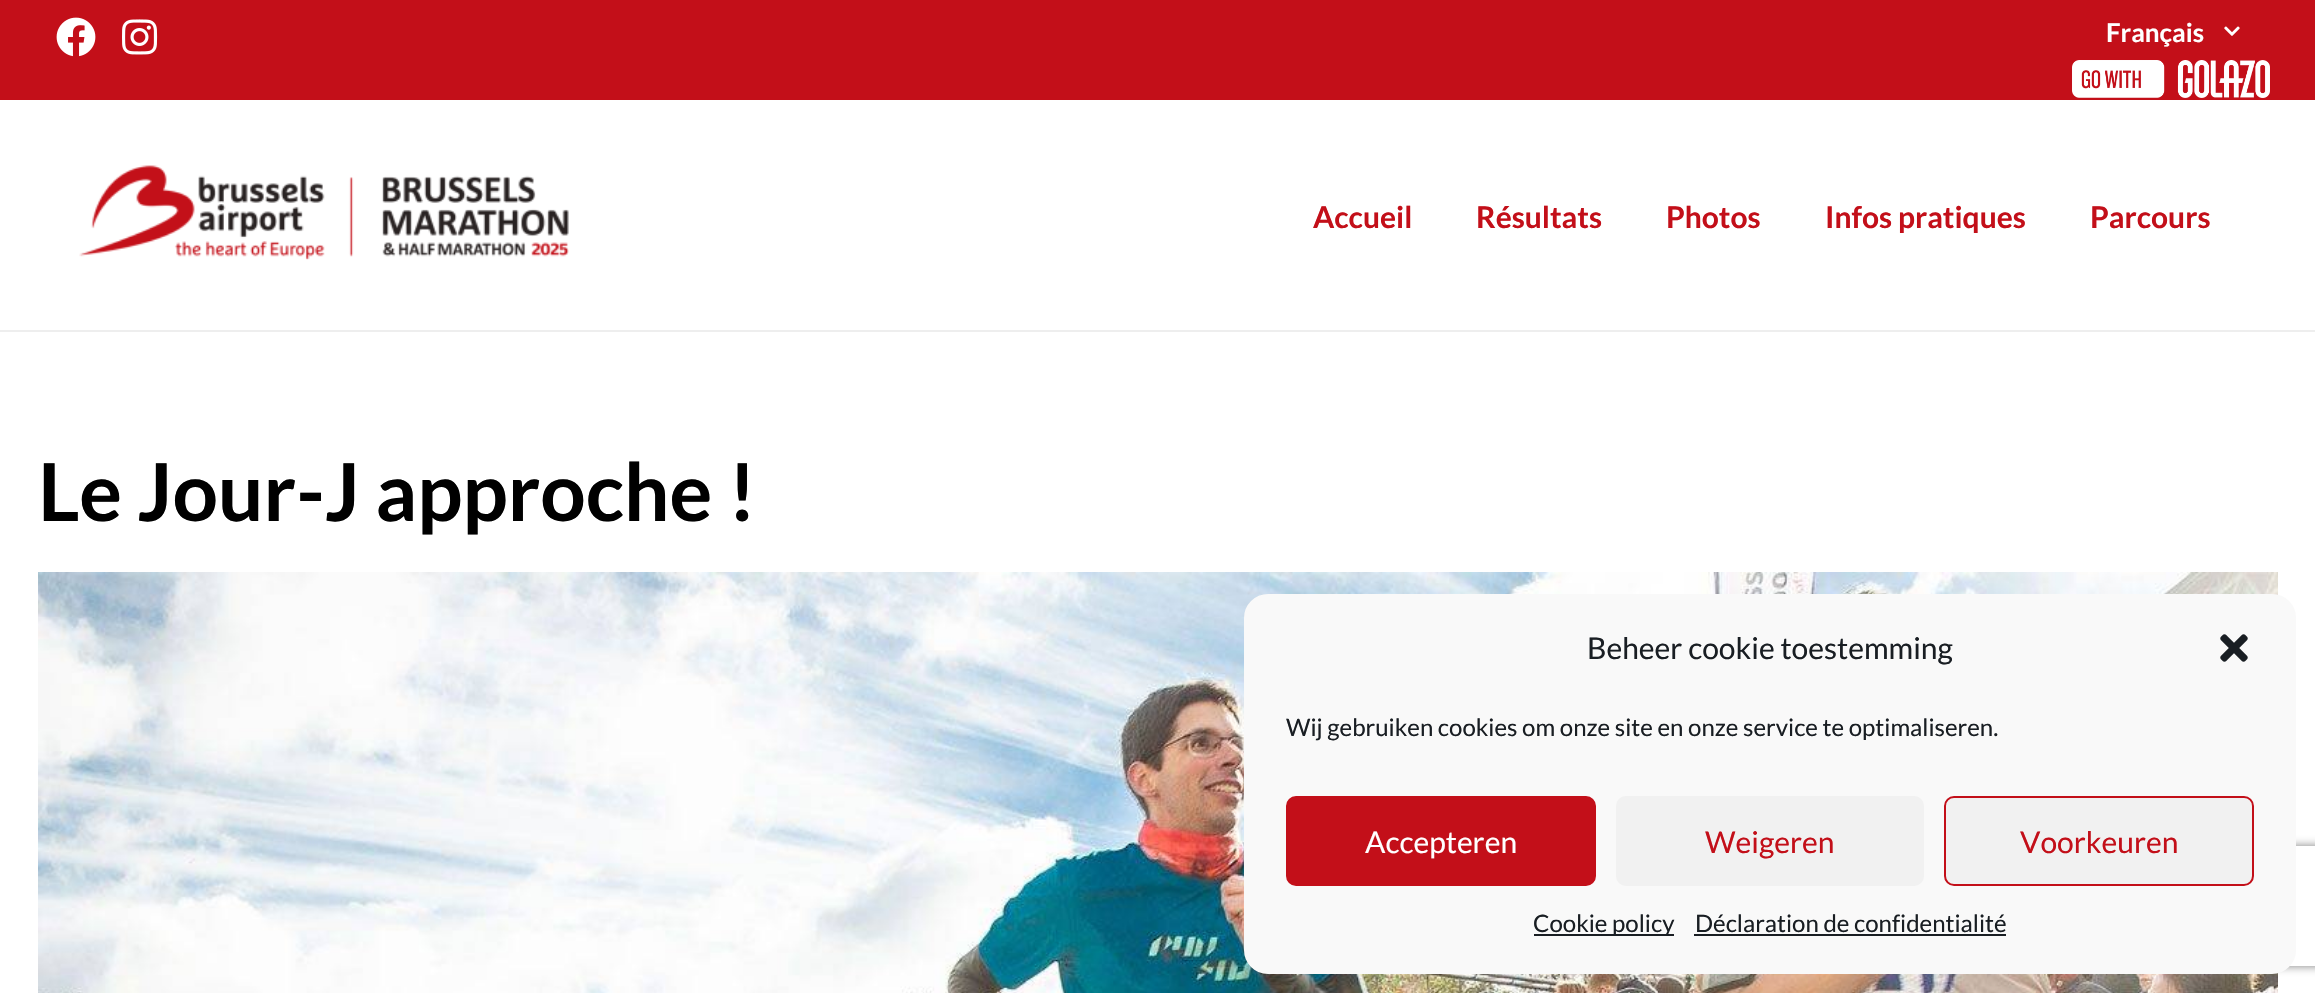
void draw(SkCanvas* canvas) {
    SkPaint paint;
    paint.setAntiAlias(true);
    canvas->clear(0xFFFFFFFF);
    paint.setColor(0xFFC30F19);
    canvas->drawRect(SkRect::MakeXYWH(0, 0, 2315, 100), paint);
    canvas->drawImageRect(SkImages::DeferredFromEncodedData(SkData::MakeFromFileName("img1.png")), SkRect::MakeXYWH(56, 17, 40, 40), SkSamplingOptions());
    canvas->drawImageRect(SkImages::DeferredFromEncodedData(SkData::MakeFromFileName("img2.png")), SkRect::MakeXYWH(122, 19, 36, 36), SkSamplingOptions());
    SkFont font1(fontMgr->matchFamilyStyle("Lato", SkFontStyle::Bold()), 26);
    font1.setSubpixel(true);
    paint.setColor(0xFFFFFFFF);
    canvas->drawString("Français", 2106, 42, font1, paint);
    canvas->drawImageRect(SkImages::DeferredFromEncodedData(SkData::MakeFromFileName("img3.png")), SkRect::MakeXYWH(2224, 26, 16, 10), SkSamplingOptions());
    canvas->drawImageRect(SkImages::DeferredFromEncodedData(SkData::MakeFromFileName("img4.png")), SkRect::MakeXYWH(2072, 60, 198, 38), SkSamplingOptions());
    paint.setColor(0xFFEEEEEE);
    canvas->drawRect(SkRect::MakeXYWH(0, 330, 2315, 2), paint);
    canvas->drawImageRect(SkImages::DeferredFromEncodedData(SkData::MakeFromFileName("img5.png")), SkRect::MakeXYWH(79, 165, 490, 95), SkSamplingOptions());
    SkFont font2(fontMgr->matchFamilyStyle("Lato", SkFontStyle::Bold()), 30);
    font2.setSubpixel(true);
    paint.setColor(0xFFC30F19);
    canvas->drawString("Accueil", 1313, 228, font2, paint);
    canvas->drawString("Résultats", 1476, 228, font2, paint);
    canvas->drawString("Photos", 1666, 228, font2, paint);
    canvas->drawString("Infos pratiques", 1825, 228, font2, paint);
    canvas->drawString("Parcours", 2090, 228, font2, paint);
    SkFont font3(fontMgr->matchFamilyStyle("Lato", SkFontStyle::Bold()), 80);
    font3.setSubpixel(true);
    paint.setColor(0xFF000000);
    canvas->drawString("Le Jour-J approche !", 38, 521, font3, paint);
    canvas->drawImageRect(SkImages::DeferredFromEncodedData(SkData::MakeFromFileName("img6.png")), SkRect::MakeXYWH(38, 572, 2240, 421), SkSamplingOptions());
    canvas->save();
    canvas->clipPath(SkPathBuilder(SkPathFillType::kEvenOdd).moveTo(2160, 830).lineTo(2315, 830).lineTo(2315, 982).lineTo(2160, 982).close().moveTo(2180, 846).lineTo(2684, 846).cubicTo(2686, 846, 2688, 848, 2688, 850).lineTo(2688, 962).cubicTo(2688, 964, 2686, 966, 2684, 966).lineTo(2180, 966).cubicTo(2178, 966, 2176, 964, 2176, 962).lineTo(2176, 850).cubicTo(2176, 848, 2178, 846, 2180, 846).close().detach(), true);
    paint.setColor(0xFF808080);
    paint.setMaskFilter(SkMaskFilter::MakeBlur(kNormal_SkBlurStyle, 5));
    canvas->drawRoundRect(SkRect::MakeXYWH(2176, 846, 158, 120), 4, 4, paint);
    paint.setMaskFilter(nullptr);
    canvas->restore();
    paint.setColor(0xFFF9F9F9);
    canvas->drawRoundRect(SkRect::MakeXYWH(1245, 595, 1050, 378), 23, 23, paint);
    paint.setStyle(SkPaint::kStroke_Style);
    paint.setStrokeWidth(2);
    canvas->drawRoundRect(SkRect::MakeXYWH(1245, 595, 1050, 378), 23, 23, paint);
    SkFont font4(fontMgr->matchFamilyStyle("Lato", SkFontStyle::Normal()), 30);
    font4.setSubpixel(true);
    paint.setStyle(SkPaint::kFill_Style);
    paint.setColor(0xFF191E23);
    canvas->drawString("Beheer cookie toestemming", 1587, 659, font4, paint);
    canvas->drawImageRect(SkImages::DeferredFromEncodedData(SkData::MakeFromFileName("img7.png")), SkRect::MakeXYWH(2220, 634, 28, 28), SkSamplingOptions());
    SkFont font5(fontMgr->matchFamilyStyle("Lato", SkFontStyle::Normal()), 24);
    font5.setSubpixel(true);
    canvas->drawString("Wij gebruiken cookies om onze site en onze service te optimaliseren.", 1286, 736, font5, paint);
    paint.setColor(0xFFC30F19);
    canvas->drawRoundRect(SkRect::MakeXYWH(1287, 797, 308, 88), 9, 9, paint);
    paint.setStyle(SkPaint::kStroke_Style);
    canvas->drawRoundRect(SkRect::MakeXYWH(1287, 797, 308, 88), 9, 9, paint);
    paint.setStyle(SkPaint::kFill_Style);
    paint.setColor(0xFFFFFFFF);
    canvas->drawString("Accepteren", 1365, 853, font4, paint);
    paint.setColor(0xFFF1F1F1);
    canvas->drawRoundRect(SkRect::MakeXYWH(1616, 796, 308, 90), 10, 10, paint);
    paint.setColor(0xFFC30F19);
    canvas->drawString("Weigeren", 1705, 853, font4, paint);
    paint.setColor(0xFFF1F1F1);
    canvas->drawRoundRect(SkRect::MakeXYWH(1945, 797, 308, 88), 9, 9, paint);
    paint.setStyle(SkPaint::kStroke_Style);
    paint.setColor(0xFFC30F19);
    canvas->drawRoundRect(SkRect::MakeXYWH(1945, 797, 308, 88), 9, 9, paint);
    paint.setStyle(SkPaint::kFill_Style);
    canvas->drawString("Voorkeuren", 2020, 853, font4, paint);
    paint.setColor(0xFF191E23);
    canvas->drawRect(SkRect::MakeXYWH(1534, 934, 140, 2), paint);
    canvas->drawString("Cookie policy", 1533, 932, font5, paint);
    canvas->drawString("Déclaration de confidentialité", 1695, 932, font5, paint);
    canvas->drawRect(SkRect::MakeXYWH(1694, 934, 312, 2), paint);
}
